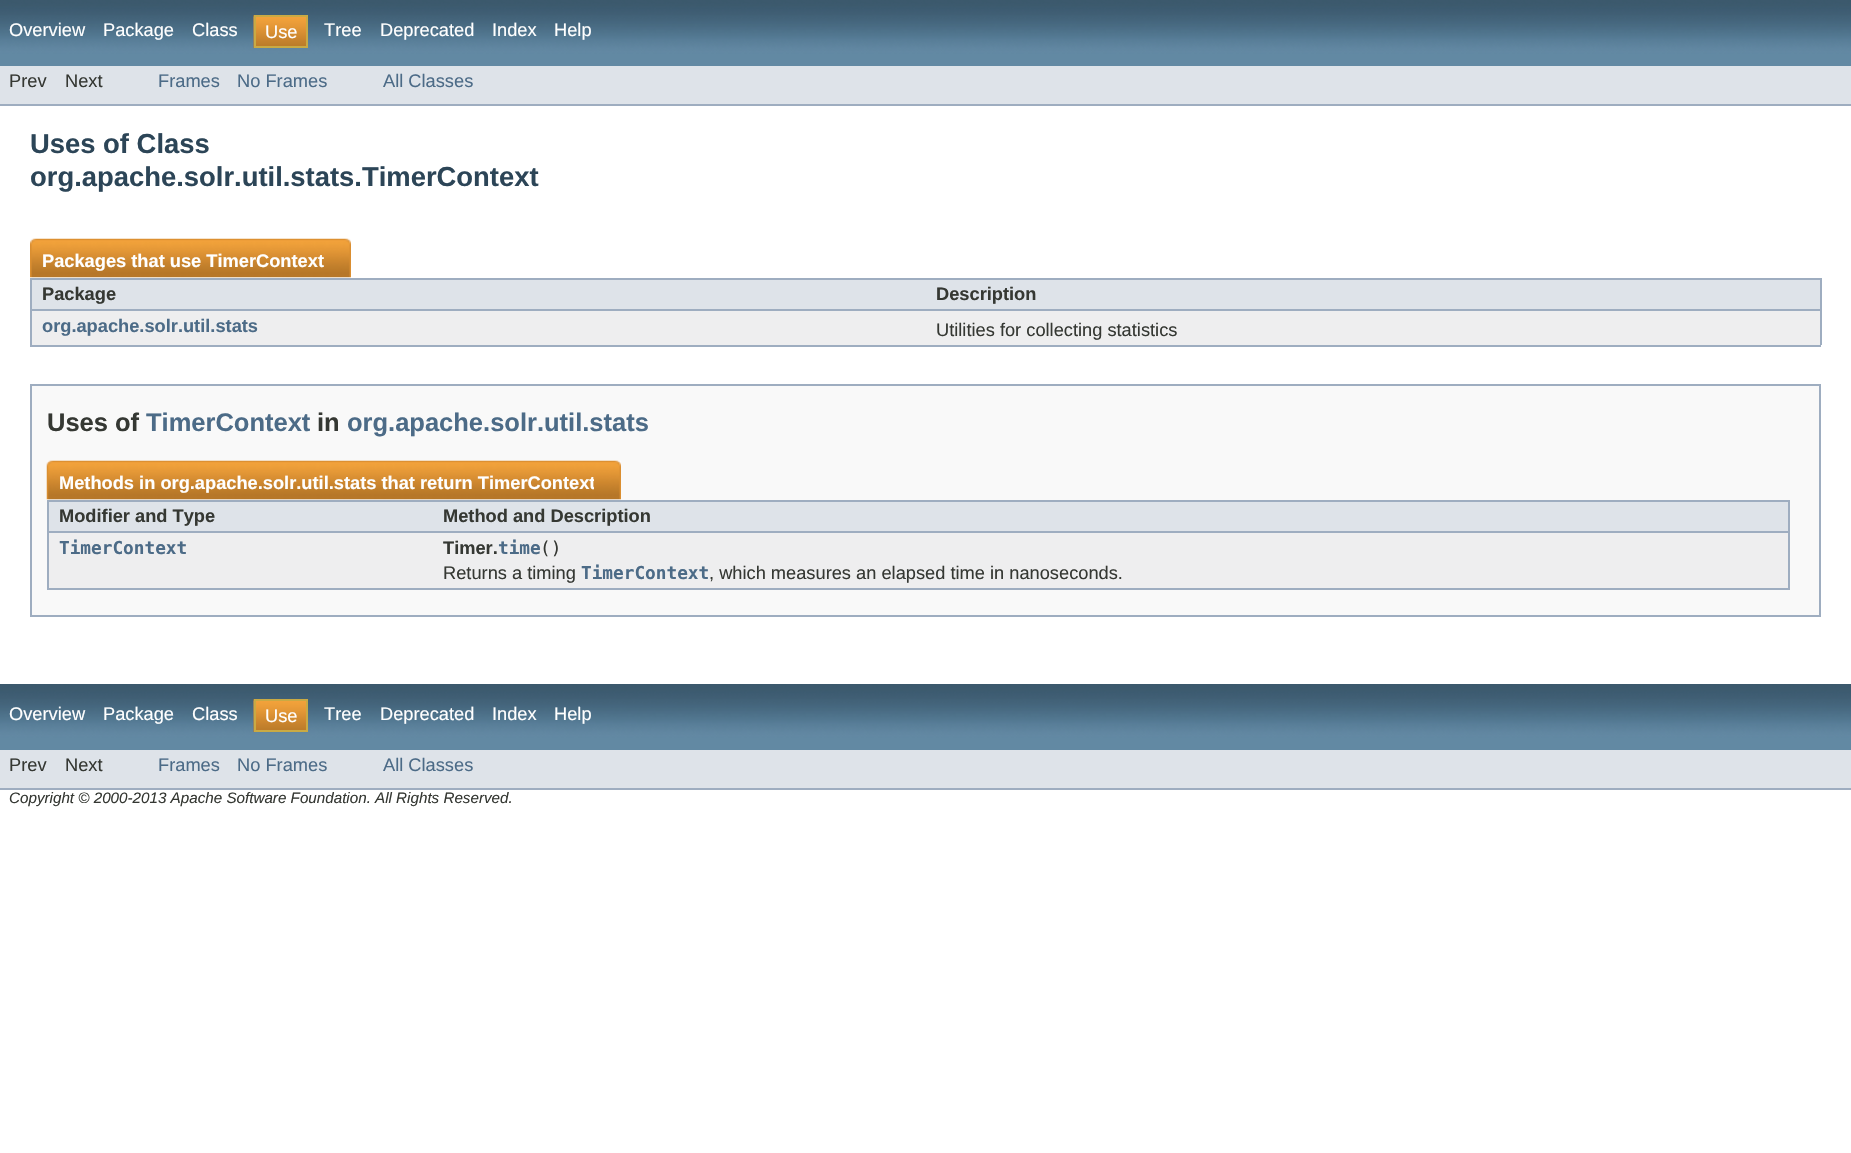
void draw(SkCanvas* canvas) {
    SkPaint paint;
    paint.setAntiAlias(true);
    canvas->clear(0xFFFFFFFF);
    canvas->drawImageRect(SkImages::DeferredFromEncodedData(SkData::MakeFromFileName("img1.png")), SkRect::MakeXYWH(0, 0, 1851, 66), SkSamplingOptions());
    SkFont font1(fontMgr->matchFamilyStyle("Liberation Sans", SkFontStyle::Normal()), 18.25f);
    font1.setSubpixel(true);
    paint.setColor(0xFFFFFFFF);
    canvas->drawString("Overview", 9, 36, font1, paint);
    canvas->drawString("Package", 103, 36, font1, paint);
    canvas->drawString("Class", 192, 36, font1, paint);
    canvas->drawImageRect(SkImages::DeferredFromEncodedData(SkData::MakeFromFileName("img2.png")), SkRect::MakeXYWH(253, 15, 53, 33), SkSamplingOptions());
    paint.setStyle(SkPaint::kStroke_Style);
    paint.setStrokeWidth(2);
    paint.setColor(0xFFC9AA44);
    canvas->drawRect(SkRect::MakeXYWH(255, 16, 52, 31), paint);
    paint.setStyle(SkPaint::kFill_Style);
    paint.setColor(0xFFFFFFFF);
    canvas->drawString("Use", 265, 38, font1, paint);
    canvas->drawString("Tree", 324, 36, font1, paint);
    canvas->drawString("Deprecated", 380, 36, font1, paint);
    canvas->drawString("Index", 492, 36, font1, paint);
    canvas->drawString("Help", 554, 36, font1, paint);
    paint.setColor(0xFFDEE3E9);
    canvas->drawRect(SkRect::MakeXYWH(0, 66, 1851, 38), paint);
    paint.setColor(0xFF9EADC0);
    canvas->drawRect(SkRect::MakeXYWH(0, 104, 1851, 2), paint);
    paint.setColor(0xFF353833);
    canvas->drawString("Prev", 9, 87, font1, paint);
    canvas->drawString("Next", 65, 87, font1, paint);
    paint.setColor(0xFF4C6B87);
    canvas->drawString("Frames", 158, 87, font1, paint);
    canvas->drawString("No Frames", 237, 87, font1, paint);
    canvas->drawString("All Classes", 383, 87, font1, paint);
    SkFont font2(fontMgr->matchFamilyStyle("Liberation Sans", SkFontStyle::Bold()), 27.4f);
    font2.setSubpixel(true);
    paint.setColor(0xFF2C4557);
    canvas->drawString("Uses of Class", 30, 153, font2, paint);
    canvas->drawString("org.apache.solr.util.stats.TimerContext", 30, 186, font2, paint);
    paint.setColor(0xFF9EADC0);
    canvas->drawRect(SkRect::MakeXYWH(30, 345, 1791, 2), paint);
    canvas->drawImageRect(SkImages::DeferredFromEncodedData(SkData::MakeFromFileName("img3.png")), SkRect::MakeXYWH(30, 238, 294, 40), SkSamplingOptions());
    SkFont font3(fontMgr->matchFamilyStyle("Liberation Sans", SkFontStyle::Bold()), 18.25f);
    font3.setSubpixel(true);
    paint.setColor(0xFFFFFFFF);
    canvas->drawString("Packages that use TimerContext", 42, 267, font3, paint);
    canvas->drawImageRect(SkImages::DeferredFromEncodedData(SkData::MakeFromFileName("img4.png")), SkRect::MakeXYWH(324, 238, 27, 40), SkSamplingOptions());
    paint.setColor(0xFFDEE3E9);
    canvas->drawRect(SkRect::MakeXYWH(32, 280, 1788, 29), paint);
    paint.setColor(0xFF9EADC0);
    canvas->drawRect(SkRect::MakeXYWH(30, 278, 1791, 2), paint);
    canvas->drawRect(SkRect::MakeXYWH(30, 309, 896, 2), paint);
    canvas->drawRect(SkRect::MakeXYWH(30, 278, 2, 67), paint);
    paint.setColor(0xFF353833);
    canvas->drawString("Package", 42, 300, font3, paint);
    paint.setColor(0xFF9EADC0);
    canvas->drawRect(SkRect::MakeXYWH(1820, 278, 2, 67), paint);
    canvas->drawRect(SkRect::MakeXYWH(926, 309, 895, 2), paint);
    paint.setColor(0xFF353833);
    canvas->drawString("Description", 936, 300, font3, paint);
    paint.setColor(0xFFEEEEEF);
    canvas->drawRect(SkRect::MakeXYWH(32, 311, 1788, 34), paint);
    paint.setColor(0xFF4C6B87);
    canvas->drawString("org.apache.solr.util.stats", 42, 332, font3, paint);
    paint.setColor(0xFF353833);
    canvas->drawString("Utilities for collecting statistics", 936, 336, font1, paint);
    paint.setColor(0xFFF9F9F9);
    canvas->drawRect(SkRect::MakeXYWH(31, 385, 1789, 231), paint);
    paint.setStyle(SkPaint::kStroke_Style);
    paint.setColor(0xFF9EADC0);
    canvas->drawRect(SkRect::MakeXYWH(31, 385, 1789, 231), paint);
    SkFont font4(fontMgr->matchFamilyStyle("Liberation Sans", SkFontStyle::Bold()), 25.5f);
    font4.setSubpixel(true);
    paint.setStyle(SkPaint::kFill_Style);
    paint.setColor(0xFF353833);
    canvas->drawString("Uses of", 47, 431, font4, paint);
    paint.setColor(0xFF4C6B87);
    canvas->drawString("TimerContext", 146, 431, font4, paint);
    paint.setColor(0xFF353833);
    canvas->drawString("in", 317, 431, font4, paint);
    paint.setColor(0xFF4C6B87);
    canvas->drawString("org.apache.solr.util.stats", 347, 431, font4, paint);
    paint.setColor(0xFF9EADC0);
    canvas->drawRect(SkRect::MakeXYWH(47, 588, 1743, 2), paint);
    canvas->drawImageRect(SkImages::DeferredFromEncodedData(SkData::MakeFromFileName("img5.png")), SkRect::MakeXYWH(46, 460, 548, 40), SkSamplingOptions());
    paint.setColor(0xFFFFFFFF);
    canvas->drawString("Methods in org.apache.solr.util.stats that return TimerContext", 59, 489, font3, paint);
    canvas->drawImageRect(SkImages::DeferredFromEncodedData(SkData::MakeFromFileName("img6.png")), SkRect::MakeXYWH(594, 460, 27, 40), SkSamplingOptions());
    paint.setColor(0xFFDEE3E9);
    canvas->drawRect(SkRect::MakeXYWH(49, 502, 1739, 29), paint);
    paint.setColor(0xFF9EADC0);
    canvas->drawRect(SkRect::MakeXYWH(47, 500, 1743, 2), paint);
    canvas->drawRect(SkRect::MakeXYWH(47, 531, 385, 2), paint);
    canvas->drawRect(SkRect::MakeXYWH(47, 500, 2, 88), paint);
    paint.setColor(0xFF353833);
    canvas->drawString("Modifier and Type", 59, 522, font3, paint);
    paint.setColor(0xFF9EADC0);
    canvas->drawRect(SkRect::MakeXYWH(1788, 500, 2, 88), paint);
    canvas->drawRect(SkRect::MakeXYWH(432, 531, 1358, 2), paint);
    paint.setColor(0xFF353833);
    canvas->drawString("Method and Description", 443, 522, font3, paint);
    paint.setColor(0xFFEEEEEF);
    canvas->drawRect(SkRect::MakeXYWH(49, 533, 1739, 55), paint);
    SkFont font5(fontMgr->matchFamilyStyle("DejaVu Sans Mono", SkFontStyle::Bold()), 17.75f);
    font5.setSubpixel(true);
    paint.setColor(0xFF4C6B87);
    canvas->drawString("TimerContext", 59, 554, font5, paint);
    paint.setColor(0xFF353833);
    canvas->drawString("Timer.", 443, 554, font3, paint);
    paint.setColor(0xFF4C6B87);
    canvas->drawString("time", 498, 554, font5, paint);
    SkFont font6(fontMgr->matchFamilyStyle("DejaVu Sans Mono", SkFontStyle::Normal()), 17.75f);
    font6.setSubpixel(true);
    paint.setColor(0xFF353833);
    canvas->drawString("()", 540, 554, font6, paint);
    canvas->drawString("Returns a timing", 443, 579, font1, paint);
    paint.setColor(0xFF4C6B87);
    canvas->drawString("TimerContext", 581, 579, font5, paint);
    paint.setColor(0xFF353833);
    canvas->drawString(", which measures an elapsed time in nanoseconds.", 709, 579, font1, paint);
    canvas->drawImageRect(SkImages::DeferredFromEncodedData(SkData::MakeFromFileName("img7.png")), SkRect::MakeXYWH(0, 684, 1851, 66), SkSamplingOptions());
    paint.setColor(0xFFFFFFFF);
    canvas->drawString("Overview", 9, 720, font1, paint);
    canvas->drawString("Package", 103, 720, font1, paint);
    canvas->drawString("Class", 192, 720, font1, paint);
    canvas->drawImageRect(SkImages::DeferredFromEncodedData(SkData::MakeFromFileName("img2.png")), SkRect::MakeXYWH(253, 699, 53, 33), SkSamplingOptions());
    paint.setStyle(SkPaint::kStroke_Style);
    paint.setColor(0xFFC9AA44);
    canvas->drawRect(SkRect::MakeXYWH(255, 700, 52, 31), paint);
    paint.setStyle(SkPaint::kFill_Style);
    paint.setColor(0xFFFFFFFF);
    canvas->drawString("Use", 265, 722, font1, paint);
    canvas->drawString("Tree", 324, 720, font1, paint);
    canvas->drawString("Deprecated", 380, 720, font1, paint);
    canvas->drawString("Index", 492, 720, font1, paint);
    canvas->drawString("Help", 554, 720, font1, paint);
    paint.setColor(0xFFDEE3E9);
    canvas->drawRect(SkRect::MakeXYWH(0, 750, 1851, 38), paint);
    paint.setColor(0xFF9EADC0);
    canvas->drawRect(SkRect::MakeXYWH(0, 788, 1851, 2), paint);
    paint.setColor(0xFF353833);
    canvas->drawString("Prev", 9, 771, font1, paint);
    canvas->drawString("Next", 65, 771, font1, paint);
    paint.setColor(0xFF4C6B87);
    canvas->drawString("Frames", 158, 771, font1, paint);
    canvas->drawString("No Frames", 237, 771, font1, paint);
    canvas->drawString("All Classes", 383, 771, font1, paint);
    SkFont font7(fontMgr->matchFamilyStyle("Liberation Sans", SkFontStyle::Italic()), 15.2f);
    font7.setSubpixel(true);
    paint.setColor(0xFF353833);
    canvas->drawString("Copyright © 2000-2013 Apache Software Foundation.", 9, 803, font7, paint);
    canvas->drawString("All Rights Reserved.", 375, 803, font7, paint);
}
